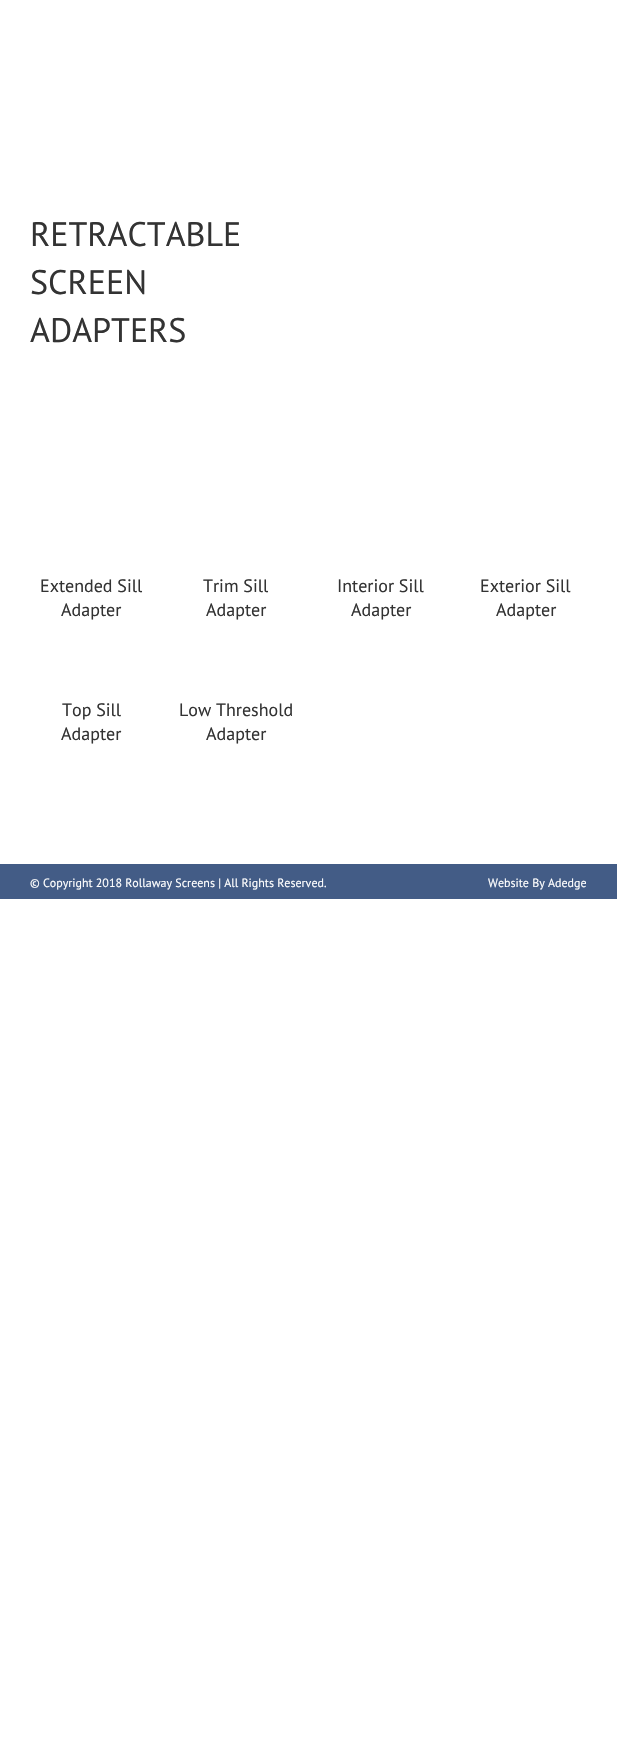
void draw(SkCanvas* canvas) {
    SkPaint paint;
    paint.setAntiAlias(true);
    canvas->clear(0xFFFFFFFF);
    SkFont font1(fontMgr->matchFamilyStyle("PT Sans", SkFontStyle::Normal()), 34);
    font1.setSubpixel(true);
    paint.setColor(0xFF333333);
    canvas->drawString("RETRACTABLE", 30, 246, font1, paint);
    canvas->drawString("SCREEN", 30, 294, font1, paint);
    canvas->drawString("ADAPTERS", 30, 342, font1, paint);
    SkFont font2(fontMgr->matchFamilyStyle("PT Sans", SkFontStyle::Normal()), 18);
    font2.setSubpixel(true);
    canvas->drawString("Extended Sill", 40, 592, font2, paint);
    canvas->drawString("Adapter", 61, 616, font2, paint);
    canvas->drawString("Trim Sill", 203, 592, font2, paint);
    canvas->drawString("Adapter", 206, 616, font2, paint);
    canvas->drawString("Interior Sill", 337, 592, font2, paint);
    canvas->drawString("Adapter", 351, 616, font2, paint);
    canvas->drawString("Exterior Sill", 480, 592, font2, paint);
    canvas->drawString("Adapter", 496, 616, font2, paint);
    canvas->drawString("Top Sill", 62, 716, font2, paint);
    canvas->drawString("Adapter", 61, 740, font2, paint);
    canvas->drawString("Low Threshold", 179, 716, font2, paint);
    canvas->drawString("Adapter", 206, 740, font2, paint);
    paint.setColor(0xFF435C86);
    canvas->drawRect(SkRect::MakeXYWH(0, 864, 617, 35), paint);
    SkFont font3(fontMgr->matchFamilyStyle("PT Sans", SkFontStyle::Normal()), 12);
    font3.setSubpixel(true);
    paint.setColor(0xFFFFFFFF);
    canvas->drawString("© Copyright 2018 Rollaway Screens | All Rights Reserved.", 30, 887, font3, paint);
    canvas->drawString("Website By Adedge", 488, 887, font3, paint);
}
